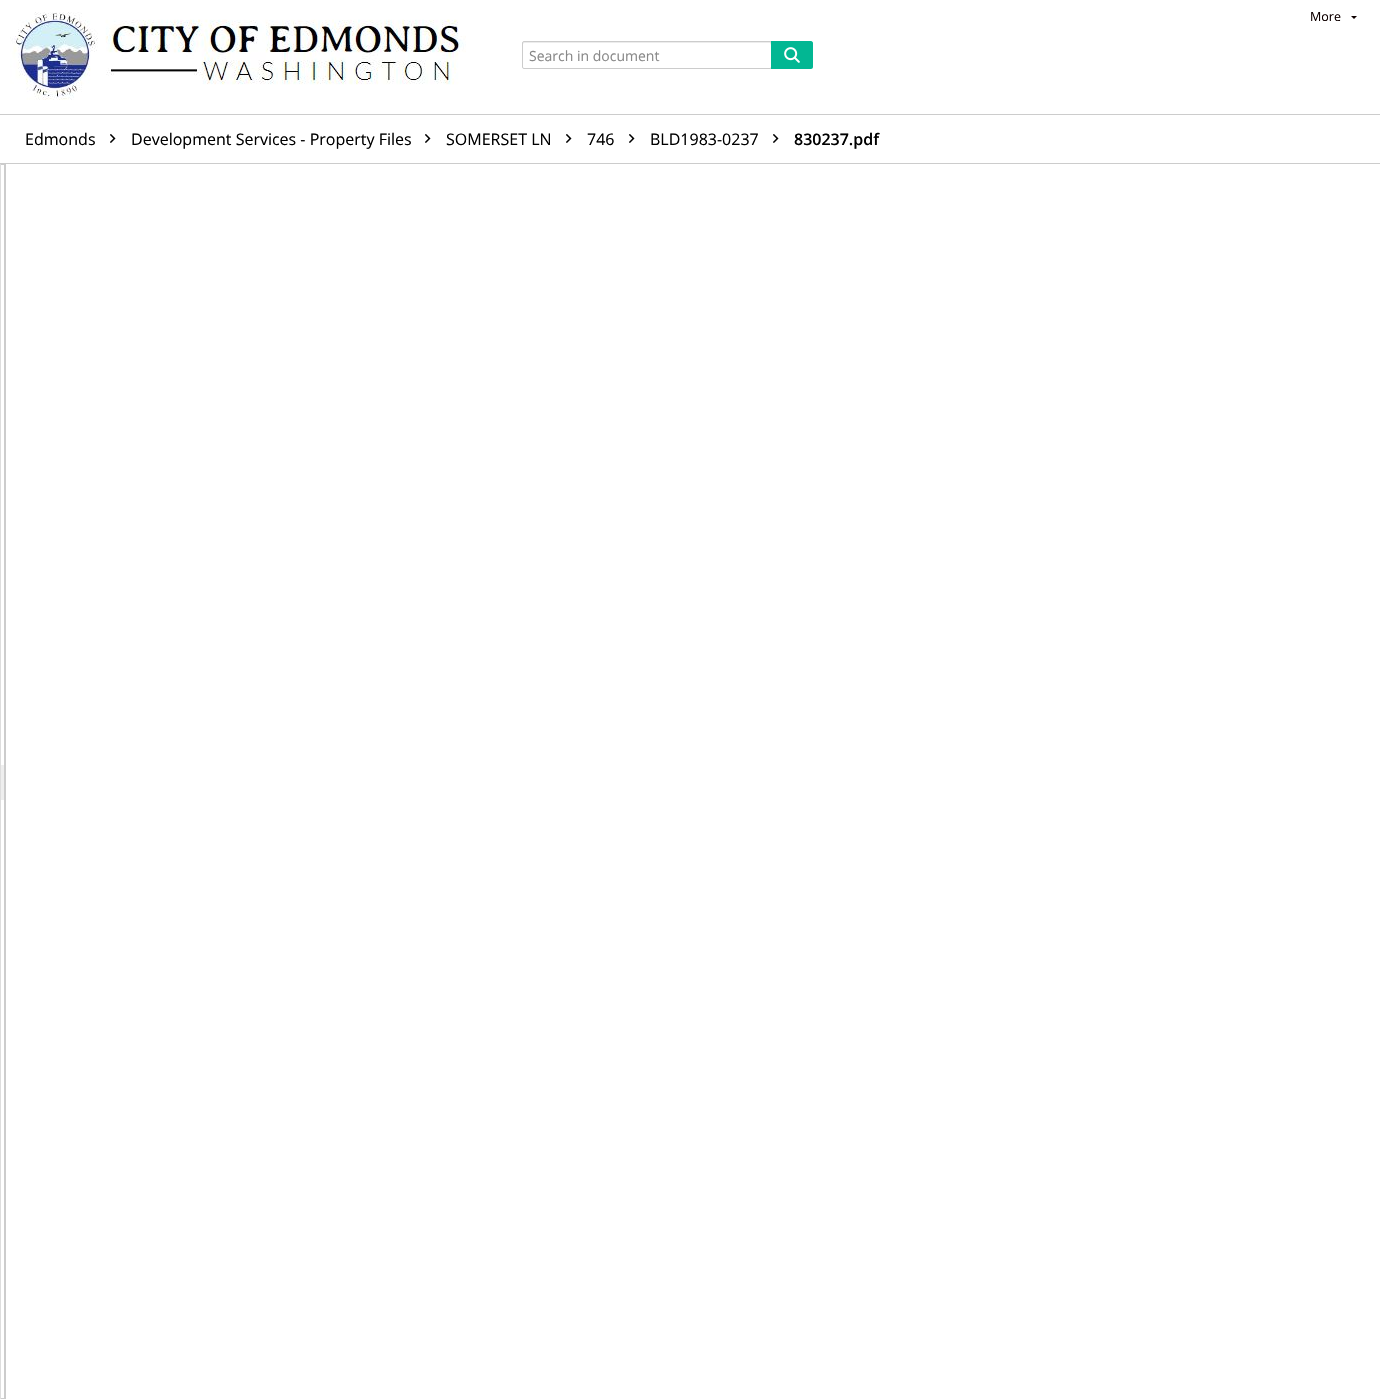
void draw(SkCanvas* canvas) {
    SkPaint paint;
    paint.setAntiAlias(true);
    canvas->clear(0xFFFFFFFF);
    paint.setColor(0xFFCCCCCC);
    canvas->drawRect(SkRect::MakeXYWH(0, 114, 1380, 1), paint);
    canvas->drawImageRect(SkImages::DeferredFromEncodedData(SkData::MakeFromFileName("img1.png")), SkRect::MakeXYWH(10, 12, 456, 88), SkSamplingOptions());
    SkFont font1(fontMgr->matchFamilyStyle("Open Sans", SkFontStyle::Normal()), 12.5f);
    font1.setSubpixel(true);
    paint.setColor(0xFF0E0000);
    canvas->drawString("More", 1310, 21, font1, paint);
    canvas->drawPath(SkPathBuilder().moveTo(1351, 16).lineTo(1357, 16).lineTo(1354, 19).close().detach(), paint);
    paint.setColor(0xFFECECEC);
    canvas->drawPath(SkPathBuilder().moveTo(524, 43).lineTo(770, 43).lineTo(771, 45).lineTo(771, 43).cubicTo(771, 42, 771, 42, 770, 42).lineTo(524, 42).cubicTo(523, 42, 523, 42, 523, 43).lineTo(523, 44).close().detach(), paint);
    paint.setStyle(SkPaint::kStroke_Style);
    paint.setStrokeWidth(1);
    paint.setColor(0xFFCCCCCC);
    canvas->drawRoundRect(SkRect::MakeXYWH(522.5f, 41.5f, 249, 27), 1.5f, 1.5f, paint);
    SkFont font2(fontMgr->matchFamilyStyle("Open Sans", SkFontStyle::Normal()), 14);
    font2.setSubpixel(true);
    paint.setStyle(SkPaint::kFill_Style);
    paint.setColor(0xFF898989);
    canvas->drawString("Search in document", 529, 61, font2, paint);
    paint.setColor(0xFF02B793);
    canvas->drawPath(SkPathBuilder().moveTo(771, 41).lineTo(811, 41).cubicTo(812, 41, 813, 42, 813, 43).lineTo(813, 67).cubicTo(813, 68, 812, 69, 811, 69).lineTo(771, 69).close().detach(), paint);
    canvas->drawImageRect(SkImages::DeferredFromEncodedData(SkData::MakeFromFileName("img2.png")), SkRect::MakeXYWH(784, 47, 16, 16), SkSamplingOptions());
    paint.setColor(0xFFCCCCCC);
    canvas->drawRect(SkRect::MakeXYWH(0, 163, 1380, 1), paint);
    SkFont font3(fontMgr->matchFamilyStyle("Open Sans", SkFontStyle::Normal()), 16);
    font3.setSubpixel(true);
    paint.setColor(0xFF000000);
    canvas->drawString("Edmonds", 25, 145, font3, paint);
    canvas->drawImageRect(SkImages::DeferredFromEncodedData(SkData::MakeFromFileName("img3.png")), SkRect::MakeXYWH(110, 134, 6, 9), SkSamplingOptions());
    canvas->drawString("Development Services - Property Files", 131, 145, font3, paint);
    canvas->drawImageRect(SkImages::DeferredFromEncodedData(SkData::MakeFromFileName("img3.png")), SkRect::MakeXYWH(425, 134, 6, 9), SkSamplingOptions());
    canvas->drawString("SOMERSET LN", 446, 145, font3, paint);
    canvas->drawImageRect(SkImages::DeferredFromEncodedData(SkData::MakeFromFileName("img3.png")), SkRect::MakeXYWH(566, 134, 6, 9), SkSamplingOptions());
    canvas->drawString("746", 587, 145, font3, paint);
    canvas->drawImageRect(SkImages::DeferredFromEncodedData(SkData::MakeFromFileName("img3.png")), SkRect::MakeXYWH(629, 134, 6, 9), SkSamplingOptions());
    canvas->drawString("BLD1983-0237", 650, 145, font3, paint);
    canvas->drawImageRect(SkImages::DeferredFromEncodedData(SkData::MakeFromFileName("img3.png")), SkRect::MakeXYWH(773, 134, 6, 9), SkSamplingOptions());
    SkFont font4(fontMgr->matchFamilyStyle("Open Sans", SkFontStyle(600, SkFontStyle::kNormal_Width, SkFontStyle::kUpright_Slant)), 16);
    font4.setSubpixel(true);
    canvas->drawString("830237.pdf", 794, 145, font4, paint);
    paint.setColor(0xFFCCCCCC);
    canvas->drawRect(SkRect::MakeXYWH(0, 164, 5, 1), paint);
    canvas->drawRect(SkRect::MakeXYWH(4, 164, 1, 1235), paint);
    canvas->drawRect(SkRect::MakeXYWH(0, 1398, 5, 1), paint);
    paint.setColor(0xFFDDDDDD);
    canvas->drawRect(SkRect::MakeXYWH(0, 164, 1, 1235), paint);
    paint.setColor(0xFFEEEEEE);
    canvas->drawRect(SkRect::MakeXYWH(1, 765, 3, 35), paint);
    paint.setColor(0xFFCCCCCC);
    canvas->drawRect(SkRect::MakeXYWH(5, 164, 1, 1235), paint);
}
